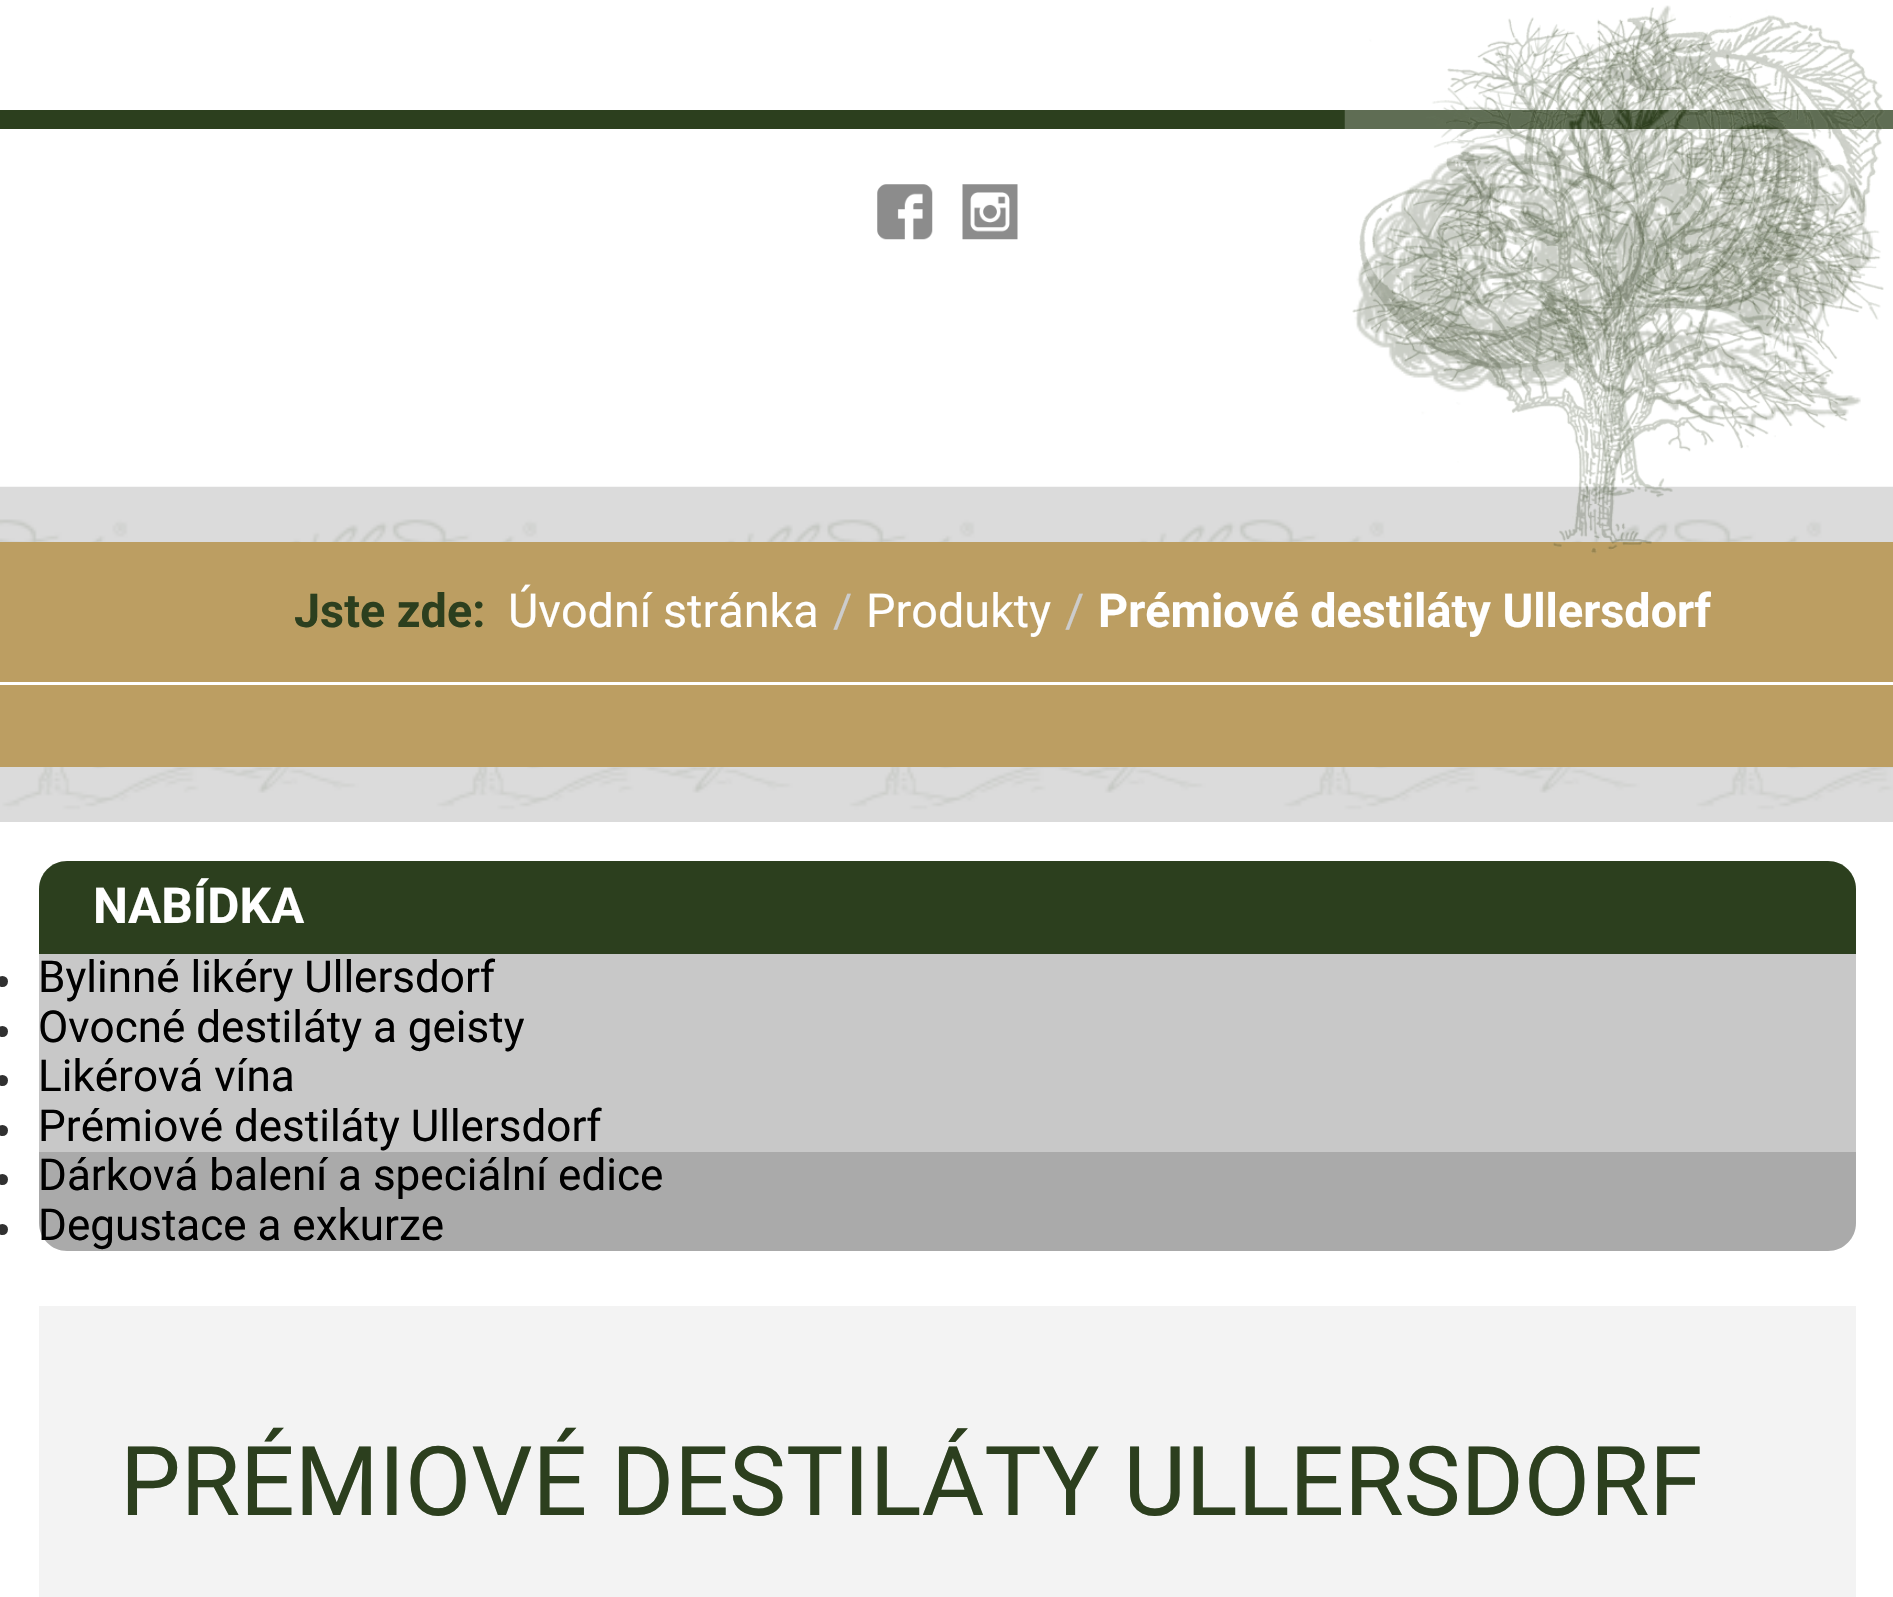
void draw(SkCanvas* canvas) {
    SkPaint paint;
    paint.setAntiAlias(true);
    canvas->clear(0xFFFFFFFF);
    paint.setColor(0xFF2C3F1E);
    canvas->drawRect(SkRect::MakeXYWH(0, 110, 1893, 19), paint);
    canvas->drawImageRect(SkImages::DeferredFromEncodedData(SkData::MakeFromFileName("img1.png")), SkRect::MakeXYWH(877, 184, 56, 56), SkSamplingOptions());
    canvas->drawImageRect(SkImages::DeferredFromEncodedData(SkData::MakeFromFileName("img2.png")), SkRect::MakeXYWH(962, 184, 56, 56), SkSamplingOptions());
    canvas->drawImageRect(SkImages::DeferredFromEncodedData(SkData::MakeFromFileName("img3.png")), SkRect::MakeXYWH(0, 486, 1893, 336), SkSamplingOptions());
    paint.setColor(0xFFBC9E62);
    canvas->drawRect(SkRect::MakeXYWH(0, 542, 1893, 225), paint);
    SkFont font1(fontMgr->matchFamilyStyle("Roboto", SkFontStyle::Bold()), 46.75f);
    font1.setSubpixel(true);
    paint.setColor(0xFF2C3F1E);
    canvas->drawString("Jste zde:", 294, 627, font1, paint);
    SkFont font2(fontMgr->matchFamilyStyle("Roboto", SkFontStyle::Normal()), 46.75f);
    font2.setSubpixel(true);
    paint.setColor(0xFFFFFFFF);
    canvas->drawString("Úvodní stránka", 508, 627, font2, paint);
    paint.setColor(0xFFCCCCCC);
    canvas->drawString("/", 833, 627, font2, paint);
    paint.setColor(0xFFFFFFFF);
    canvas->drawString("Produkty", 866, 627, font2, paint);
    paint.setColor(0xFFCCCCCC);
    canvas->drawString("/", 1065, 627, font2, paint);
    paint.setColor(0xFFFFFFFF);
    canvas->drawString("Prémiové destiláty Ullersdorf", 1098, 627, font1, paint);
    canvas->drawRect(SkRect::MakeXYWH(0, 682, 1893, 3), paint);
    paint.setColor(0xFF2C3F1E);
    canvas->drawPath(SkPathBuilder().moveTo(67, 861).lineTo(1828, 861).cubicTo(1843.5f, 861, 1856, 873.5f, 1856, 889).lineTo(1856, 954).lineTo(39, 954).lineTo(39, 889).cubicTo(39, 873.5f, 51.5f, 861, 67, 861).close().detach(), paint);
    SkFont font3(fontMgr->matchFamilyStyle("Roboto", SkFontStyle::Bold()), 49.5f);
    font3.setSubpixel(true);
    paint.setColor(0xFFFFFFFF);
    canvas->drawString("NABÍDKA", 93, 923, font3, paint);
    paint.setColor(0xFFC8C8C8);
    canvas->drawRect(SkRect::MakeXYWH(39, 954, 1817, 198), paint);
    paint.setColor(0xFF303030);
    canvas->drawCircle(2.5f, 981.5f, 5.5f, paint);
    SkFont font4(fontMgr->matchFamilyStyle("Roboto", SkFontStyle::Normal()), 44);
    font4.setSubpixel(true);
    paint.setColor(0xFF000000);
    canvas->drawString("Bylinné likéry Ullersdorf", 38, 992, font4, paint);
    paint.setColor(0xFF303030);
    canvas->drawCircle(2.5f, 1031.5f, 5.5f, paint);
    paint.setColor(0xFF000000);
    canvas->drawString("Ovocné destiláty a geisty", 38, 1042, font4, paint);
    paint.setColor(0xFF303030);
    canvas->drawCircle(2.5f, 1080.5f, 5.5f, paint);
    paint.setColor(0xFF000000);
    canvas->drawString("Likérová vína", 38, 1091, font4, paint);
    paint.setColor(0xFF303030);
    canvas->drawCircle(2.5f, 1130.5f, 5.5f, paint);
    paint.setColor(0xFF000000);
    canvas->drawString("Prémiové destiláty Ullersdorf", 38, 1141, font4, paint);
    paint.setColor(0xFFAAAAAA);
    canvas->drawRect(SkRect::MakeXYWH(39, 1152, 1817, 50), paint);
    paint.setColor(0xFF303030);
    canvas->drawCircle(2.5f, 1179.5f, 5.5f, paint);
    paint.setColor(0xFF000000);
    canvas->drawString("Dárková balení a speciální edice", 38, 1190, font4, paint);
    paint.setColor(0xFFAAAAAA);
    canvas->drawPath(SkPathBuilder().moveTo(39, 1202).lineTo(1856, 1202).lineTo(1856, 1223).cubicTo(1856, 1238.5f, 1843.5f, 1251, 1828, 1251).lineTo(67, 1251).cubicTo(51.5f, 1251, 39, 1238.5f, 39, 1223).close().detach(), paint);
    paint.setColor(0xFF303030);
    canvas->drawCircle(2.5f, 1229.5f, 5.5f, paint);
    paint.setColor(0xFF000000);
    canvas->drawString("Degustace a exkurze", 38, 1240, font4, paint);
    canvas->drawImageRect(SkImages::DeferredFromEncodedData(SkData::MakeFromFileName("img7.png")), SkRect::MakeXYWH(1360, 16, 521, 486), SkSamplingOptions());
    canvas->drawImageRect(SkImages::DeferredFromEncodedData(SkData::MakeFromFileName("img4.png")), SkRect::MakeXYWH(1344, 5, 549, 435), SkSamplingOptions());
    canvas->drawImageRect(SkImages::DeferredFromEncodedData(SkData::MakeFromFileName("img5.png")), SkRect::MakeXYWH(1352, 7, 532, 547), SkSamplingOptions());
    canvas->drawImageRect(SkImages::DeferredFromEncodedData(SkData::MakeFromFileName("img6.png")), SkRect::MakeXYWH(1359, 15, 526, 355), SkSamplingOptions());
    paint.setColor(0xFFF3F3F3);
    canvas->drawRect(SkRect::MakeXYWH(39, 1306, 1817, 291), paint);
    SkFont font5(fontMgr->matchFamilyStyle("Roboto", SkFontStyle::Normal()), 96.25f);
    font5.setSubpixel(true);
    paint.setColor(0xFF2C3F1E);
    canvas->drawString("PRÉMIOVÉ DESTILÁTY ULLERSDORF", 120, 1515, font5, paint);
}
